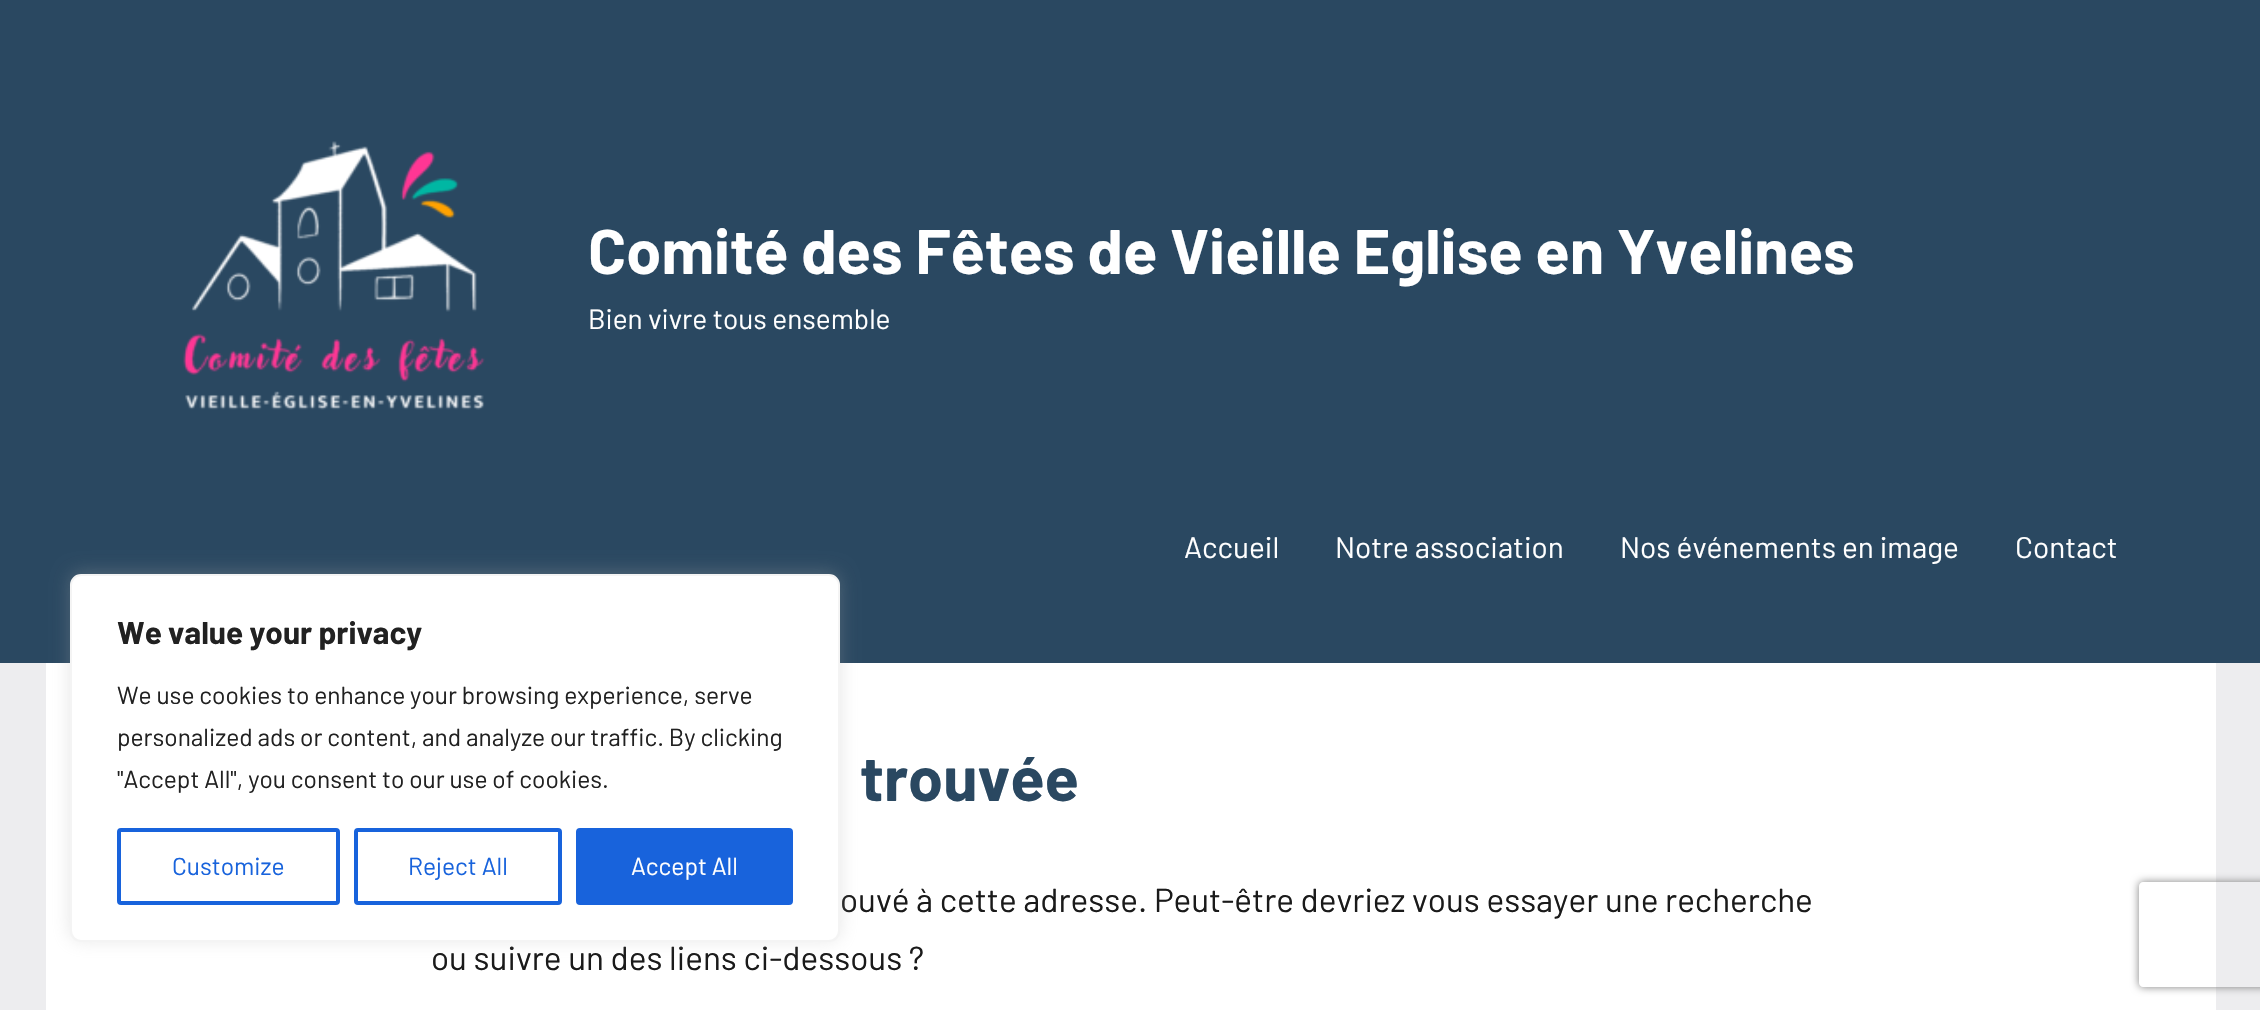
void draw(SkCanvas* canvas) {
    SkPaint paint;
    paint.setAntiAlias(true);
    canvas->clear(0xFFEDEDEF);
    paint.setColor(0xFF2A4861);
    canvas->drawRect(SkRect::MakeXYWH(0, 0, 2260, 663), paint);
    canvas->drawImageRect(SkImages::DeferredFromEncodedData(SkData::MakeFromFileName("img1.png")), SkRect::MakeXYWH(183, 141, 302, 269), SkSamplingOptions());
    SkFont font1(fontMgr->matchFamilyStyle("Barlow", SkFontStyle::Bold()), 63);
    font1.setSubpixel(true);
    paint.setColor(0xFFFFFFFF);
    canvas->drawString("Comité des Fêtes de Vieille Eglise en Yvelines", 588, 274, font1, paint);
    SkFont font2(fontMgr->matchFamilyStyle("Barlow", SkFontStyle::Normal()), 28);
    font2.setSubpixel(true);
    canvas->drawString("Bien vivre tous ensemble", 588, 329, font2, paint);
    SkFont font3(fontMgr->matchFamilyStyle("Barlow", SkFontStyle::Normal()), 29.75f);
    font3.setSubpixel(true);
    canvas->drawString("Accueil", 1184, 558, font3, paint);
    canvas->drawString("Notre association", 1335, 558, font3, paint);
    canvas->drawString("Nos événements en image", 1620, 558, font3, paint);
    canvas->drawString("Contact", 2015, 558, font3, paint);
    canvas->drawRect(SkRect::MakeXYWH(46, 663, 2170, 347), paint);
    paint.setColor(0xFF2A4861);
    canvas->drawString("trouvée", 860, 801, font1, paint);
    SkFont font4(fontMgr->matchFamilyStyle("Barlow", SkFontStyle::Normal()), 33.25f);
    font4.setSubpixel(true);
    paint.setColor(0xFF1A1A1A);
    canvas->drawString("ouvé à cette adresse. Peut-être devriez vous essayer une recherche", 840, 912, font4, paint);
    canvas->drawString("ou suivre un des liens ci-dessous ?", 431, 970, font4, paint);
    paint.setColor(0x4DACABAB);
    paint.setMaskFilter(SkMaskFilter::MakeBlur(kNormal_SkBlurStyle, 9));
    canvas->drawRoundRect(SkRect::MakeXYWH(70, 572, 770, 368), 11, 11, paint);
    paint.setMaskFilter(nullptr);
    paint.setColor(0xFFFFFFFF);
    canvas->drawRoundRect(SkRect::MakeXYWH(71, 575, 768, 366), 10, 10, paint);
    paint.setStyle(SkPaint::kStroke_Style);
    paint.setStrokeWidth(2);
    paint.setColor(0xFFF4F4F4);
    canvas->drawRoundRect(SkRect::MakeXYWH(71, 575, 768, 366), 10, 10, paint);
    SkFont font5(fontMgr->matchFamilyStyle("Barlow", SkFontStyle::Bold()), 31.5f);
    font5.setSubpixel(true);
    paint.setStyle(SkPaint::kFill_Style);
    paint.setColor(0xFF212121);
    canvas->drawString("We value your privacy", 117, 644, font5, paint);
    SkFont font6(fontMgr->matchFamilyStyle("Barlow", SkFontStyle::Normal()), 24.5f);
    font6.setSubpixel(true);
    canvas->drawString("We use cookies to enhance your browsing experience, serve", 117, 704, font6, paint);
    canvas->drawString("personalized ads or content, and analyze our traffic. By clicking", 117, 746, font6, paint);
    canvas->drawString("\"Accept All\", you consent to our use of cookies.", 117, 788, font6, paint);
    paint.setStyle(SkPaint::kStroke_Style);
    paint.setStrokeWidth(4);
    paint.setColor(0xFF1863DC);
    canvas->drawRoundRect(SkRect::MakeXYWH(119, 830, 219, 73), 2, 2, paint);
    paint.setStyle(SkPaint::kFill_Style);
    canvas->drawString("Customize", 172, 875, font6, paint);
    paint.setStyle(SkPaint::kStroke_Style);
    canvas->drawRoundRect(SkRect::MakeXYWH(356, 830, 204, 73), 2, 2, paint);
    paint.setStyle(SkPaint::kFill_Style);
    canvas->drawString("Reject All", 408, 875, font6, paint);
    canvas->drawRoundRect(SkRect::MakeXYWH(578, 830, 213, 73), 2, 2, paint);
    paint.setStyle(SkPaint::kStroke_Style);
    canvas->drawRoundRect(SkRect::MakeXYWH(578, 830, 213, 73), 2, 2, paint);
    paint.setStyle(SkPaint::kFill_Style);
    paint.setColor(0xFFFFFFFF);
    canvas->drawString("Accept All", 631, 875, font6, paint);
    canvas->save();
    canvas->clipPath(SkPathBuilder(SkPathFillType::kEvenOdd).moveTo(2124, 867).lineTo(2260, 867).lineTo(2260, 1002).lineTo(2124, 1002).close().moveTo(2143, 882).lineTo(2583, 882).cubicTo(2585, 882, 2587, 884, 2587, 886).lineTo(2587, 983).cubicTo(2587, 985, 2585, 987, 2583, 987).lineTo(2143, 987).cubicTo(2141, 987, 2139, 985, 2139, 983).lineTo(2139, 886).cubicTo(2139, 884, 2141, 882, 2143, 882).close().detach(), true);
    paint.setColor(0xFF808080);
    paint.setMaskFilter(SkMaskFilter::MakeBlur(kNormal_SkBlurStyle, 4.5f));
    canvas->drawRoundRect(SkRect::MakeXYWH(2139, 882, 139, 105), 4, 4, paint);
    paint.setMaskFilter(nullptr);
    canvas->restore();
}
